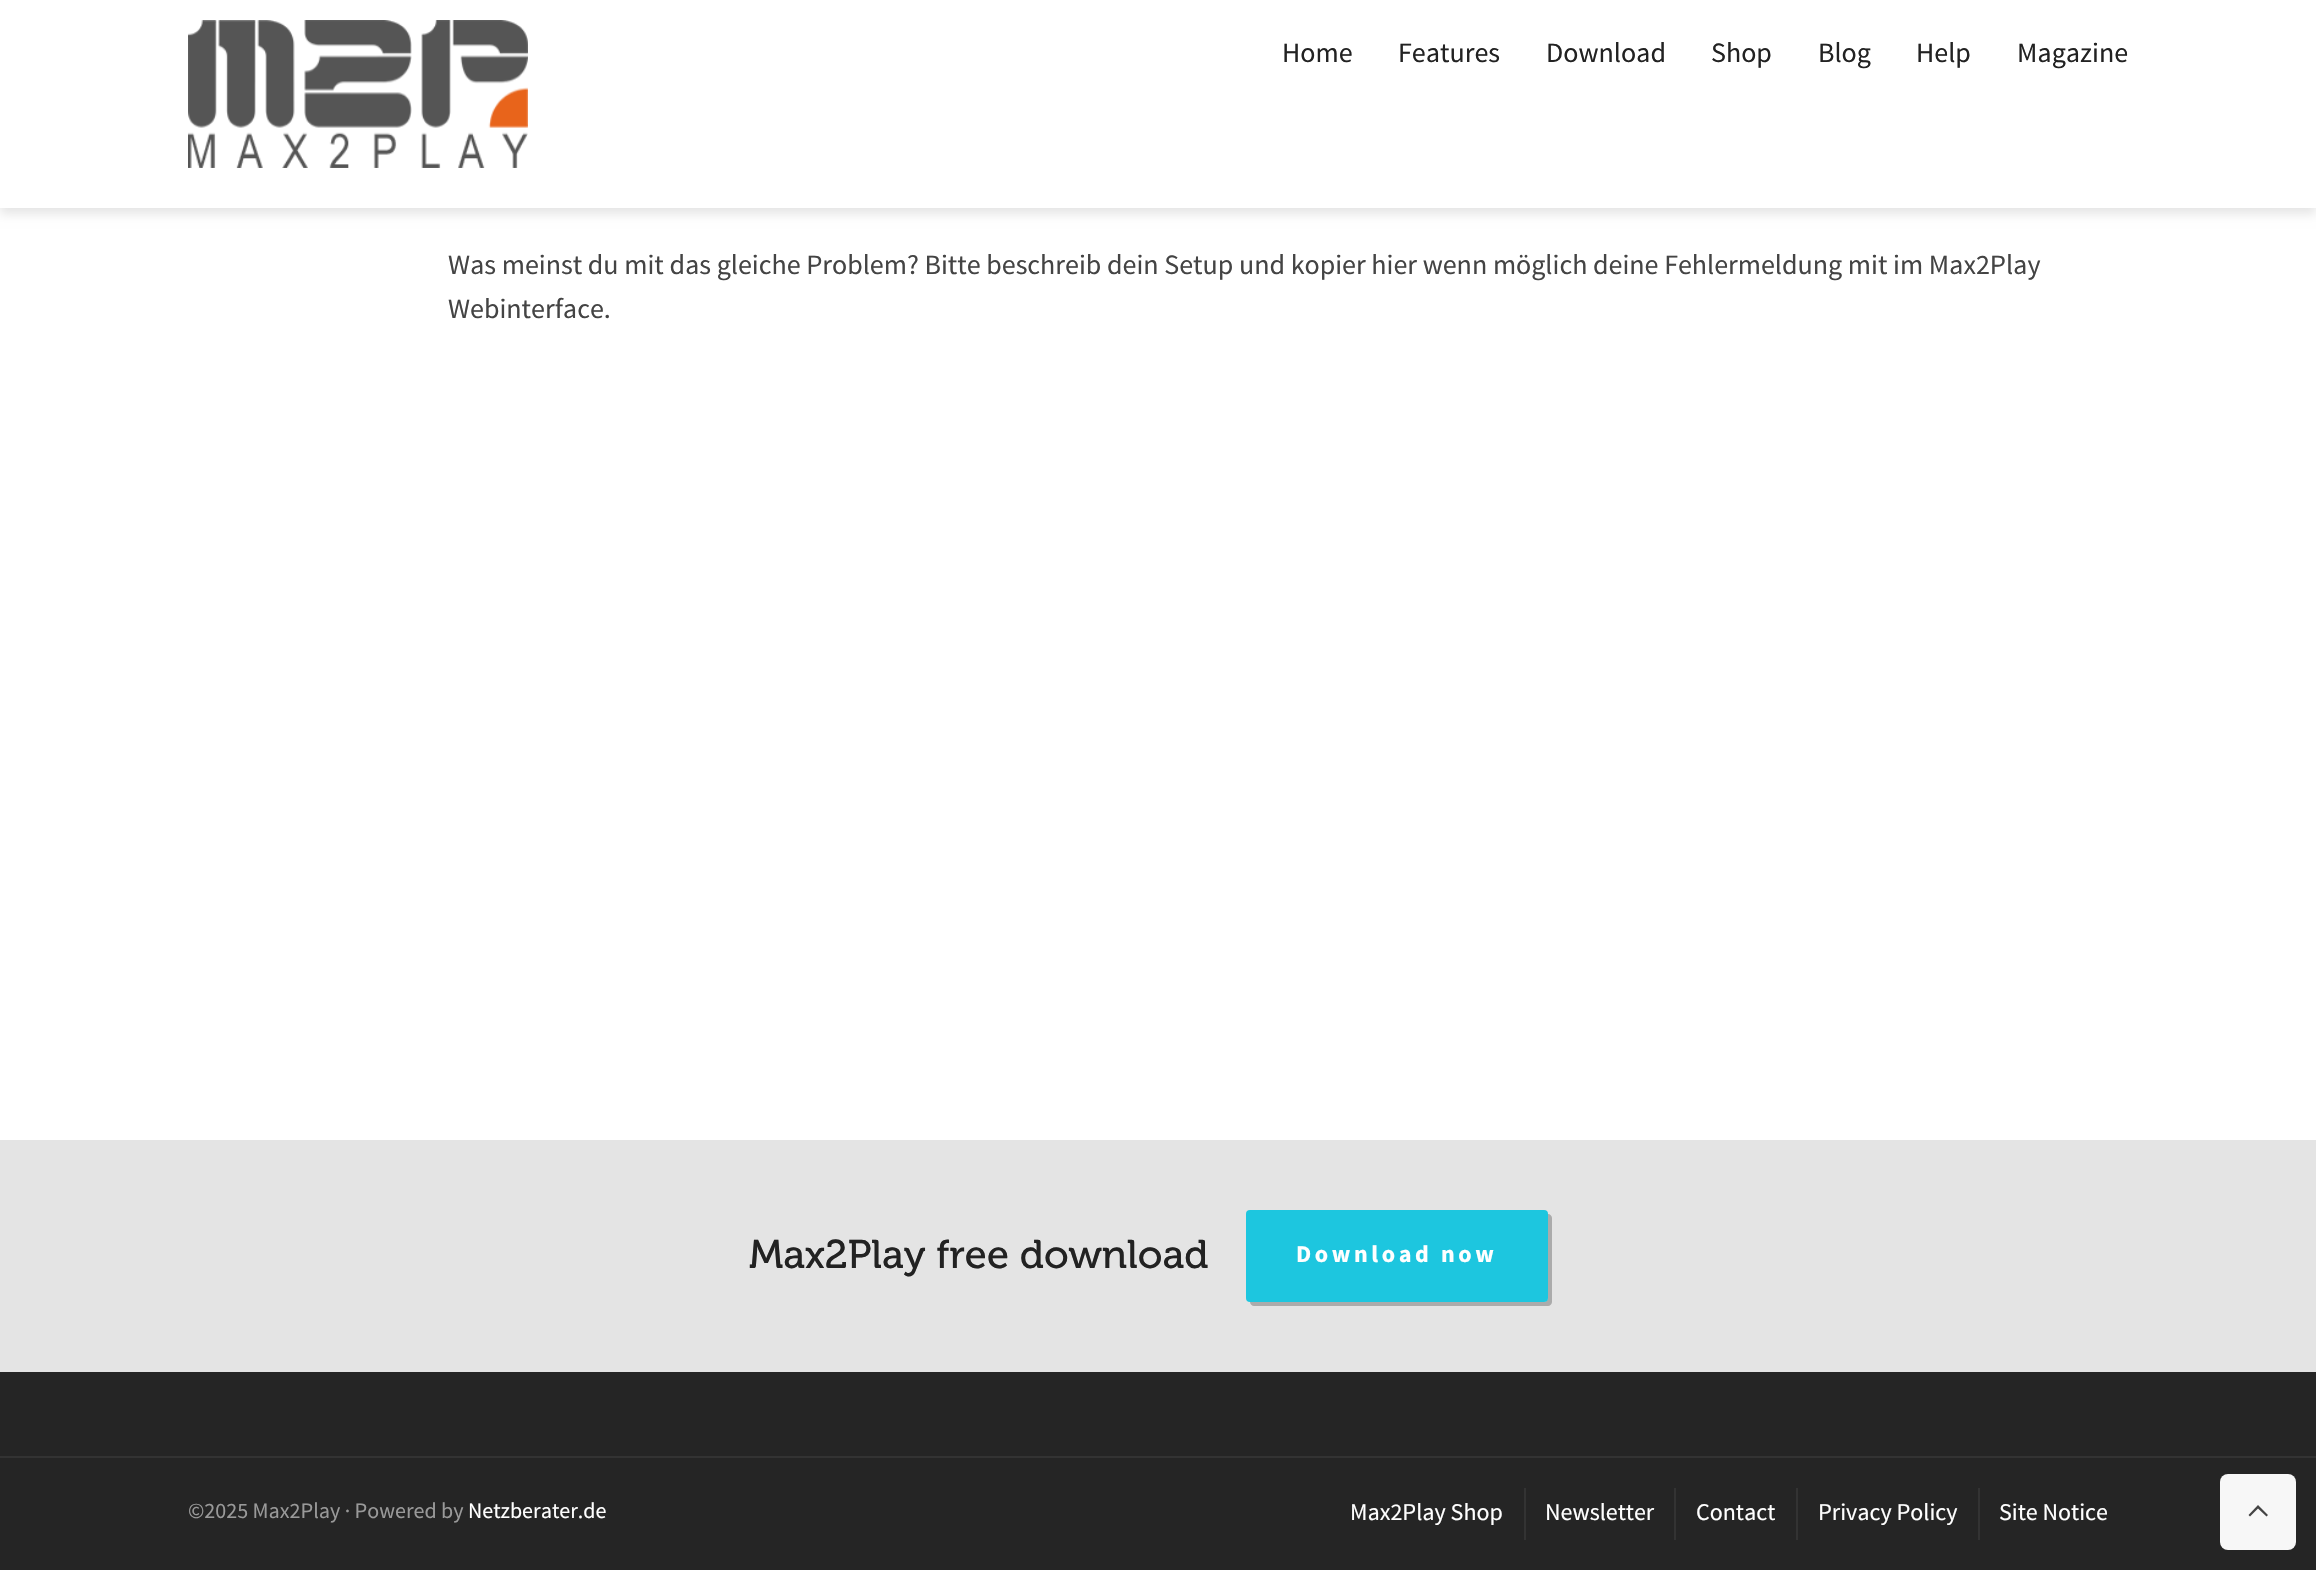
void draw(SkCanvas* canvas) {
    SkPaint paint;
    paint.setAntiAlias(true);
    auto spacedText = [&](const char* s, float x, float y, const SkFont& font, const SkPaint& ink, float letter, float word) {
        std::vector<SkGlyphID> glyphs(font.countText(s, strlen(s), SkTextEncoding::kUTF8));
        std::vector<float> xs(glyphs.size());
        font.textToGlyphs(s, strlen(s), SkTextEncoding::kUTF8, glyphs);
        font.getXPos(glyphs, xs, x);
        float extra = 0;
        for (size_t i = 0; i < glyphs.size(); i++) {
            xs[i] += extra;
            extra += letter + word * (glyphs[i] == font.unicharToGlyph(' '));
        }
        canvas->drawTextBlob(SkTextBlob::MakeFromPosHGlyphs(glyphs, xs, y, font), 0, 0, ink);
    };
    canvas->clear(0xFFFFFFFF);
    paint.setColor(0x1A000000);
    paint.setMaskFilter(SkMaskFilter::MakeBlur(kNormal_SkBlurStyle, 5));
    canvas->drawRect(SkRect::MakeXYWH(0, 6, 2316, 208), paint);
    paint.setMaskFilter(nullptr);
    paint.setColor(0xFFFFFFFF);
    canvas->drawRect(SkRect::MakeXYWH(0, 0, 2316, 208), paint);
    canvas->drawImageRect(SkImages::DeferredFromEncodedData(SkData::MakeFromFileName("img1.png")), SkRect::MakeXYWH(188, 20, 340, 148), SkSamplingOptions());
    SkFont font1(fontMgr->matchFamilyStyle("Source Sans Pro", SkFontStyle::Normal()), 28);
    font1.setSubpixel(true);
    paint.setColor(0xFF222222);
    canvas->drawString("Home", 1282, 62, font1, paint);
    canvas->drawString("Features", 1398, 62, font1, paint);
    canvas->drawString("Download", 1546, 62, font1, paint);
    canvas->drawString("Shop", 1711, 62, font1, paint);
    canvas->drawString("Blog", 1818, 62, font1, paint);
    canvas->drawString("Help", 1916, 62, font1, paint);
    canvas->drawString("Magazine", 2017, 62, font1, paint);
    paint.setColor(0xFF444444);
    canvas->drawString("Was meinst du mit das gleiche Problem? Bitte beschreib dein Setup und kopier hier wenn möglich deine Fehlermeldung mit im Max2Play", 448, 274, font1, paint);
    canvas->drawString("Webinterface.", 448, 318, font1, paint);
    paint.setColor(0xFFE4E4E4);
    canvas->drawRect(SkRect::MakeXYWH(0, 1140, 2316, 232), paint);
    SkFont font2(fontMgr->matchFamilyStyle("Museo", SkFontStyle::Normal()), 40);
    font2.setSubpixel(true);
    paint.setColor(0xFF222222);
    canvas->drawString("Max2Play free download", 749, 1268, font2, paint);
    paint.setColor(0xFFABABAB);
    canvas->drawPath(SkPathBuilder().moveTo(1250, 1302).cubicTo(1250, 1304, 1252, 1306, 1254, 1306).lineTo(1548, 1306).cubicTo(1550, 1306, 1552, 1304, 1552, 1302).lineTo(1552, 1218).cubicTo(1552, 1216, 1550, 1214, 1548, 1214).lineTo(1548, 1298).cubicTo(1548, 1300, 1546, 1302, 1544, 1302).close().detach(), paint);
    paint.setColor(0xFF1DC6DF);
    canvas->drawRoundRect(SkRect::MakeXYWH(1246, 1210, 302, 92), 4, 4, paint);
    SkFont font3(fontMgr->matchFamilyStyle("Source Sans Pro", SkFontStyle::Bold()), 24);
    font3.setSubpixel(true);
    paint.setColor(0xFFFFFFFF);
    spacedText("Download now", 1296, 1262, font3, paint, 3.6f, 0);
    paint.setColor(0xFF252525);
    canvas->drawRect(SkRect::MakeXYWH(0, 1372, 2316, 84), paint);
    canvas->drawRect(SkRect::MakeXYWH(0, 1458, 2316, 112), paint);
    paint.setColor(0xFF333333);
    canvas->drawRect(SkRect::MakeXYWH(0, 1456, 2316, 2), paint);
    SkFont font4(fontMgr->matchFamilyStyle("Source Sans Pro", SkFontStyle::Normal()), 22);
    font4.setSubpixel(true);
    paint.setColor(0xFF999999);
    canvas->drawString("©2025 Max2Play · Powered by", 188, 1518, font4, paint);
    paint.setColor(0xFFFFFFFF);
    canvas->drawString("Netzberater.de", 468, 1518, font4, paint);
    SkFont font5(fontMgr->matchFamilyStyle("Source Sans Pro", SkFontStyle::Normal()), 24);
    font5.setSubpixel(true);
    canvas->drawString("Max2Play Shop", 1350, 1520, font5, paint);
    paint.setColor(0xFF333333);
    canvas->drawRect(SkRect::MakeXYWH(1524, 1488, 2, 52), paint);
    paint.setColor(0xFFFFFFFF);
    canvas->drawString("Newsletter", 1545, 1520, font5, paint);
    paint.setColor(0xFF333333);
    canvas->drawRect(SkRect::MakeXYWH(1674, 1488, 2, 52), paint);
    paint.setColor(0xFFFFFFFF);
    canvas->drawString("Contact", 1696, 1520, font5, paint);
    paint.setColor(0xFF333333);
    canvas->drawRect(SkRect::MakeXYWH(1796, 1488, 2, 52), paint);
    paint.setColor(0xFFFFFFFF);
    canvas->drawString("Privacy Policy", 1818, 1520, font5, paint);
    paint.setColor(0xFF333333);
    canvas->drawRect(SkRect::MakeXYWH(1978, 1488, 2, 52), paint);
    paint.setColor(0xFFFFFFFF);
    canvas->drawString("Site Notice", 1999, 1520, font5, paint);
    paint.setColor(0xFFF7F7F7);
    canvas->drawRoundRect(SkRect::MakeXYWH(2220, 1474, 76, 76), 8, 8, paint);
    paint.setColor(0xFF444444);
    canvas->drawPath(SkPathBuilder().moveTo(2266.5f, 1516.5f).lineTo(2258, 1508.5f).lineTo(2250, 1516.5f).lineTo(2248.5f, 1515).lineTo(2258, 1505).lineTo(2268, 1515).close().detach(), paint);
}
